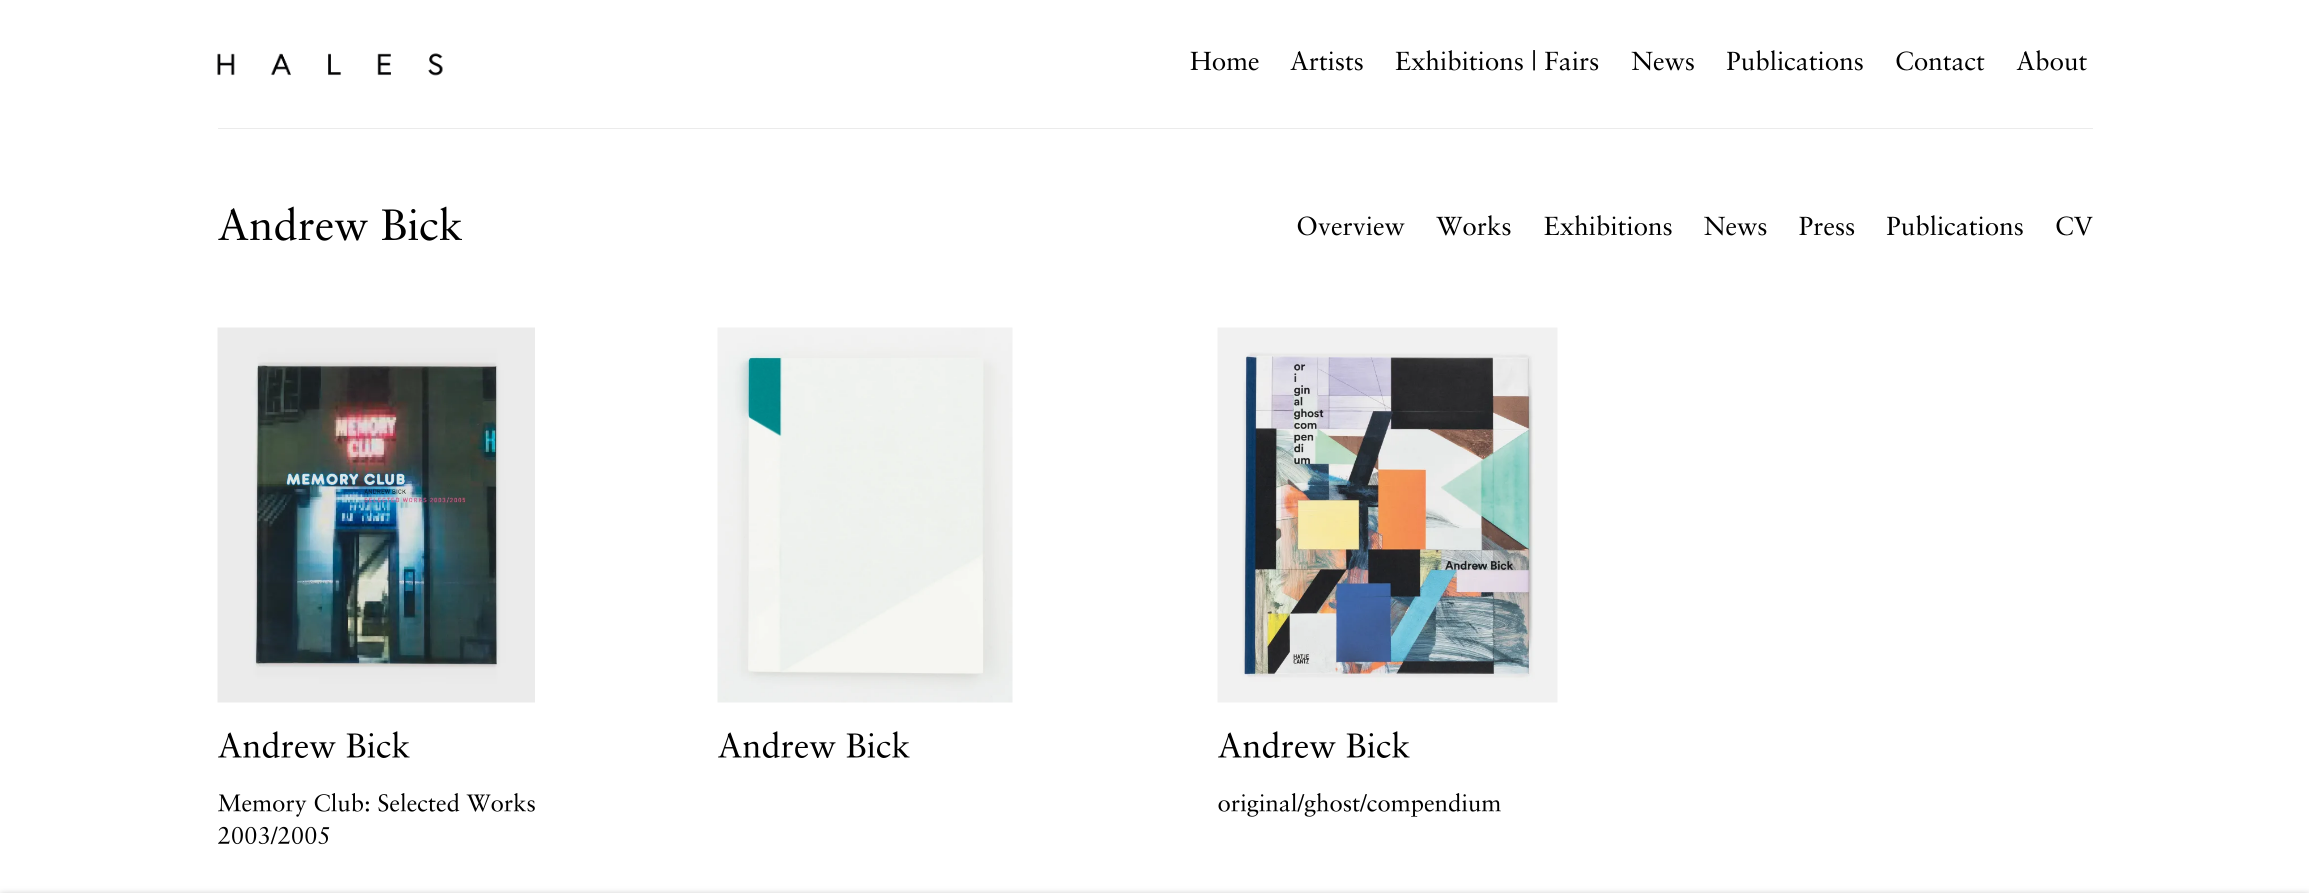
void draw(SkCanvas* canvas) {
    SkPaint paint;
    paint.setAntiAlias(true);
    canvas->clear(0xFFFFFFFF);
    paint.setColor(0xFFEBEBEB);
    canvas->drawRect(SkRect::MakeXYWH(218, 128, 1875, 1), paint);
    canvas->drawImageRect(SkImages::DeferredFromEncodedData(SkData::MakeFromFileName("img1.png")), SkRect::MakeXYWH(217, 53, 226, 23), SkSamplingOptions());
    canvas->drawImageRect(SkImages::DeferredFromEncodedData(SkData::MakeFromFileName("img2.png")), SkRect::MakeXYWH(1190, 51, 69, 20), SkSamplingOptions());
    canvas->drawImageRect(SkImages::DeferredFromEncodedData(SkData::MakeFromFileName("img3.png")), SkRect::MakeXYWH(1290, 51, 73, 20), SkSamplingOptions());
    canvas->drawImageRect(SkImages::DeferredFromEncodedData(SkData::MakeFromFileName("img4.png")), SkRect::MakeXYWH(1395, 50, 204, 21), SkSamplingOptions());
    canvas->drawImageRect(SkImages::DeferredFromEncodedData(SkData::MakeFromFileName("img5.png")), SkRect::MakeXYWH(1631, 51, 63, 20), SkSamplingOptions());
    canvas->drawImageRect(SkImages::DeferredFromEncodedData(SkData::MakeFromFileName("img6.png")), SkRect::MakeXYWH(1726, 50, 137, 21), SkSamplingOptions());
    canvas->drawImageRect(SkImages::DeferredFromEncodedData(SkData::MakeFromFileName("img7.png")), SkRect::MakeXYWH(1896, 51, 89, 20), SkSamplingOptions());
    canvas->drawImageRect(SkImages::DeferredFromEncodedData(SkData::MakeFromFileName("img8.png")), SkRect::MakeXYWH(2016, 50, 71, 21), SkSamplingOptions());
    canvas->drawImageRect(SkImages::DeferredFromEncodedData(SkData::MakeFromFileName("img9.png")), SkRect::MakeXYWH(218, 206, 244, 35), SkSamplingOptions());
    canvas->drawImageRect(SkImages::DeferredFromEncodedData(SkData::MakeFromFileName("img10.png")), SkRect::MakeXYWH(1297, 216, 108, 20), SkSamplingOptions());
    canvas->drawImageRect(SkImages::DeferredFromEncodedData(SkData::MakeFromFileName("img11.png")), SkRect::MakeXYWH(1436, 215, 75, 21), SkSamplingOptions());
    canvas->drawImageRect(SkImages::DeferredFromEncodedData(SkData::MakeFromFileName("img12.png")), SkRect::MakeXYWH(1544, 215, 128, 21), SkSamplingOptions());
    canvas->drawImageRect(SkImages::DeferredFromEncodedData(SkData::MakeFromFileName("img13.png")), SkRect::MakeXYWH(1704, 216, 63, 20), SkSamplingOptions());
    canvas->drawImageRect(SkImages::DeferredFromEncodedData(SkData::MakeFromFileName("img14.png")), SkRect::MakeXYWH(1799, 216, 56, 20), SkSamplingOptions());
    canvas->drawImageRect(SkImages::DeferredFromEncodedData(SkData::MakeFromFileName("img6.png")), SkRect::MakeXYWH(1886, 215, 137, 21), SkSamplingOptions());
    canvas->drawImageRect(SkImages::DeferredFromEncodedData(SkData::MakeFromFileName("img15.png")), SkRect::MakeXYWH(2056, 216, 37, 20), SkSamplingOptions());
    canvas->drawImageRect(SkImages::DeferredFromEncodedData(SkData::MakeFromFileName("img16.png")), SkRect::MakeXYWH(217, 327, 318, 376), SkSamplingOptions());
    canvas->drawImageRect(SkImages::DeferredFromEncodedData(SkData::MakeFromFileName("img17.png")), SkRect::MakeXYWH(218, 731, 192, 27), SkSamplingOptions());
    canvas->drawImageRect(SkImages::DeferredFromEncodedData(SkData::MakeFromFileName("img18.png")), SkRect::MakeXYWH(218, 793, 317, 24), SkSamplingOptions());
    canvas->drawImageRect(SkImages::DeferredFromEncodedData(SkData::MakeFromFileName("img19.png")), SkRect::MakeXYWH(218, 826, 112, 19), SkSamplingOptions());
    canvas->drawImageRect(SkImages::DeferredFromEncodedData(SkData::MakeFromFileName("img20.png")), SkRect::MakeXYWH(717, 327, 296, 376), SkSamplingOptions());
    canvas->drawImageRect(SkImages::DeferredFromEncodedData(SkData::MakeFromFileName("img17.png")), SkRect::MakeXYWH(718, 731, 192, 27), SkSamplingOptions());
    canvas->drawImageRect(SkImages::DeferredFromEncodedData(SkData::MakeFromFileName("img21.png")), SkRect::MakeXYWH(1217, 327, 341, 376), SkSamplingOptions());
    canvas->drawImageRect(SkImages::DeferredFromEncodedData(SkData::MakeFromFileName("img17.png")), SkRect::MakeXYWH(1218, 731, 192, 27), SkSamplingOptions());
    canvas->drawImageRect(SkImages::DeferredFromEncodedData(SkData::MakeFromFileName("img22.png")), SkRect::MakeXYWH(1218, 793, 283, 24), SkSamplingOptions());
    paint.setColor(0x3B000000);
    paint.setMaskFilter(SkMaskFilter::MakeBlur(kNormal_SkBlurStyle, 3));
    canvas->drawRect(SkRect::MakeXYWH(0, 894, 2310, 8), paint);
    paint.setMaskFilter(nullptr);
}
